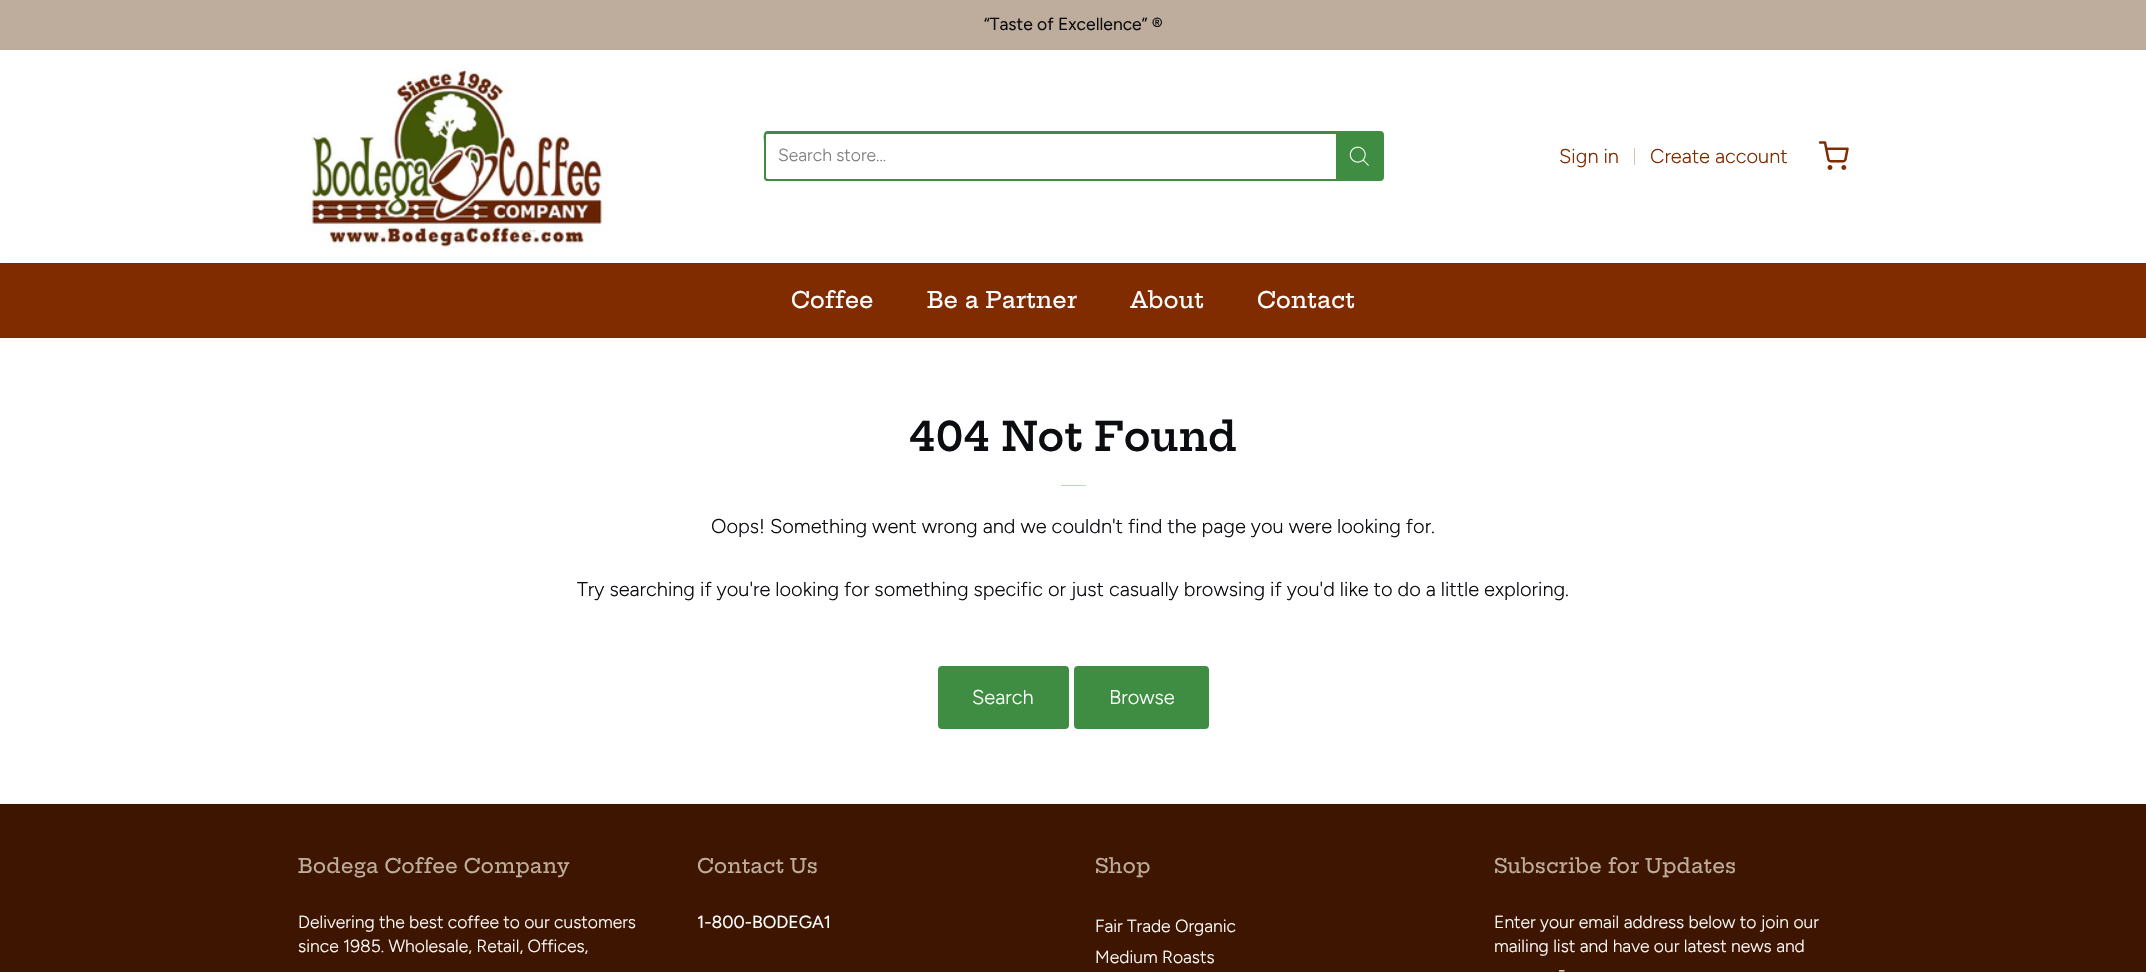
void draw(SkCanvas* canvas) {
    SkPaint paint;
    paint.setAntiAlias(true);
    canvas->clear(0xFFFFFFFF);
    paint.setColor(0xFFBEAD9D);
    canvas->drawRect(SkRect::MakeXYWH(0, 0, 2146, 50), paint);
    SkFont font1(fontMgr->matchFamilyStyle("Figtree", SkFontStyle::Normal()), 17.5f);
    font1.setSubpixel(true);
    paint.setColor(0xFF0B0D11);
    canvas->drawString("“Taste of Excellence” ®", 984, 30, font1, paint);
    paint.setColor(0xFF812C00);
    canvas->drawRect(SkRect::MakeXYWH(0, 263, 2146, 75), paint);
    paint.setColor(0x33000000);
    paint.setMaskFilter(SkMaskFilter::MakeBlur(kNormal_SkBlurStyle, 1));
    canvas->drawRect(SkRect::MakeXYWH(3, 55, 2141, 208), paint);
    paint.setMaskFilter(nullptr);
    paint.setColor(0xFFFFFFFF);
    canvas->drawRect(SkRect::MakeXYWH(1, 53, 2145, 210), paint);
    canvas->drawImageRect(SkImages::DeferredFromEncodedData(SkData::MakeFromFileName("img1.png")), SkRect::MakeXYWH(309, 63, 300, 187), SkSamplingOptions());
    paint.setColor(0xFF3F8D43);
    canvas->drawPath(SkPathBuilder(SkPathFillType::kEvenOdd).moveTo(768, 131).lineTo(1336, 131).lineTo(1336, 181).lineTo(766, 181).lineTo(764, 179).lineTo(764, 142).cubicTo(764, 139, 762, 131, 768, 131).close().moveTo(768, 134).lineTo(1336, 134).lineTo(1336, 179).lineTo(768, 179).cubicTo(767, 179, 766, 178, 766, 178).lineTo(766, 135).cubicTo(766, 134, 767, 134, 768, 134).close().detach(), paint);
    SkFont font2(fontMgr->matchFamilyStyle("Figtree", SkFontStyle(300, SkFontStyle::kNormal_Width, SkFontStyle::kUpright_Slant)), 17.5f);
    font2.setSubpixel(true);
    paint.setColor(0xFF7B7C7E);
    canvas->drawString("Search store...", 778, 161, font2, paint);
    paint.setColor(0xFF3F8D43);
    canvas->drawPath(SkPathBuilder().moveTo(1337.5f, 132.5f).lineTo(1380, 132.5f).cubicTo(1381.5f, 132.5f, 1382.5f, 133.5f, 1382.5f, 135).lineTo(1382.5f, 177).cubicTo(1382.5f, 178.5f, 1381.5f, 179.5f, 1380, 179.5f).lineTo(1337.5f, 179.5f).close().detach(), paint);
    paint.setStyle(SkPaint::kStroke_Style);
    paint.setStrokeWidth(3);
    canvas->drawPath(SkPathBuilder().moveTo(1337.5f, 132.5f).lineTo(1380, 132.5f).cubicTo(1381.5f, 132.5f, 1382.5f, 133.5f, 1382.5f, 135).lineTo(1382.5f, 177).cubicTo(1382.5f, 178.5f, 1381.5f, 179.5f, 1380, 179.5f).lineTo(1337.5f, 179.5f).close().detach(), paint);
    canvas->drawImageRect(SkImages::DeferredFromEncodedData(SkData::MakeFromFileName("img2.png")), SkRect::MakeXYWH(1349, 146, 20, 20), SkSamplingOptions());
    SkFont font3(fontMgr->matchFamilyStyle("Figtree", SkFontStyle(300, SkFontStyle::kNormal_Width, SkFontStyle::kUpright_Slant)), 20);
    font3.setSubpixel(true);
    paint.setStyle(SkPaint::kFill_Style);
    paint.setColor(0xFF812C00);
    canvas->drawString("Sign in", 1559, 163, font3, paint);
    paint.setColor(0xFFD9C0B3);
    canvas->drawRect(SkRect::MakeXYWH(1634, 148, 1, 17), paint);
    paint.setColor(0xFF812C00);
    canvas->drawString("Create account", 1650, 163, font3, paint);
    canvas->drawImageRect(SkImages::DeferredFromEncodedData(SkData::MakeFromFileName("img3.png")), SkRect::MakeXYWH(1819, 141, 30, 29), SkSamplingOptions());
    SkFont font4(fontMgr->matchFamilyStyle("Hepta Slab", SkFontStyle(500, SkFontStyle::kNormal_Width, SkFontStyle::kUpright_Slant)), 22.5f);
    font4.setSubpixel(true);
    paint.setColor(0xFFFFFFFF);
    canvas->drawString("Coffee", 791, 308, font4, paint);
    canvas->drawString("Be a Partner", 927, 308, font4, paint);
    canvas->drawString("About", 1130, 308, font4, paint);
    canvas->drawString("Contact", 1257, 308, font4, paint);
    SkFont font5(fontMgr->matchFamilyStyle("Hepta Slab", SkFontStyle(600, SkFontStyle::kNormal_Width, SkFontStyle::kUpright_Slant)), 40);
    font5.setSubpixel(true);
    paint.setColor(0xFF0B0D11);
    canvas->drawString("404 Not Found", 909, 451, font5, paint);
    paint.setColor(0xFFB8DFBA);
    canvas->drawRect(SkRect::MakeXYWH(1061, 485, 25, 1), paint);
    paint.setColor(0xFF0B0D11);
    canvas->drawString("Oops! Something went wrong and we couldn't find the page you were looking for.", 711, 533, font3, paint);
    canvas->drawString("Try searching if you're looking for something specific or just casually browsing if you'd like to do a little exploring.", 577, 596, font3, paint);
    paint.setColor(0xFF3F8D43);
    canvas->drawRoundRect(SkRect::MakeXYWH(939.5f, 667.5f, 128, 60), 2.5f, 2.5f, paint);
    paint.setStyle(SkPaint::kStroke_Style);
    canvas->drawRoundRect(SkRect::MakeXYWH(939.5f, 667.5f, 128, 60), 2.5f, 2.5f, paint);
    paint.setStyle(SkPaint::kFill_Style);
    paint.setColor(0xFFFFFFFF);
    canvas->drawString("Search", 972, 704, font3, paint);
    paint.setColor(0xFF3F8D43);
    canvas->drawRoundRect(SkRect::MakeXYWH(1075.5f, 667.5f, 132, 60), 2.5f, 2.5f, paint);
    paint.setStyle(SkPaint::kStroke_Style);
    canvas->drawRoundRect(SkRect::MakeXYWH(1075.5f, 667.5f, 132, 60), 2.5f, 2.5f, paint);
    paint.setStyle(SkPaint::kFill_Style);
    paint.setColor(0xFFFFFFFF);
    canvas->drawString("Browse", 1109, 704, font3, paint);
    paint.setColor(0xFF3D1500);
    canvas->drawRect(SkRect::MakeXYWH(0, 804, 2146, 168), paint);
    SkFont font6(fontMgr->matchFamilyStyle("Hepta Slab", SkFontStyle(500, SkFontStyle::kNormal_Width, SkFontStyle::kUpright_Slant)), 20);
    font6.setSubpixel(true);
    paint.setColor(0xFFBEAD9D);
    canvas->drawString("Bodega Coffee Company", 298, 873, font6, paint);
    paint.setColor(0xFFFFFFFF);
    canvas->drawString("Delivering the best coffee to our customers", 298, 928, font2, paint);
    canvas->drawString("since 1985. Wholesale, Retail, Offices,", 298, 952, font2, paint);
    paint.setColor(0xFFBEAD9D);
    canvas->drawString("Contact Us", 697, 873, font6, paint);
    paint.setColor(0xFFFFFFFF);
    canvas->drawString("1-800-BODEGA1", 697, 928, font1, paint);
    paint.setColor(0xFFBEAD9D);
    canvas->drawString("Shop", 1095, 873, font6, paint);
    paint.setColor(0xFFFFFFFF);
    canvas->drawString("Fair Trade Organic", 1095, 932, font2, paint);
    canvas->drawString("Medium Roasts", 1095, 963, font2, paint);
    paint.setColor(0xFFBEAD9D);
    canvas->drawString("Subscribe for Updates", 1494, 873, font6, paint);
    paint.setColor(0xFFFFFFFF);
    canvas->drawString("Enter your email address below to join our", 1494, 928, font2, paint);
    canvas->drawString("mailing list and have our latest news and", 1494, 952, font2, paint);
    canvas->drawString("-", 1558, 976, font2, paint);
}
